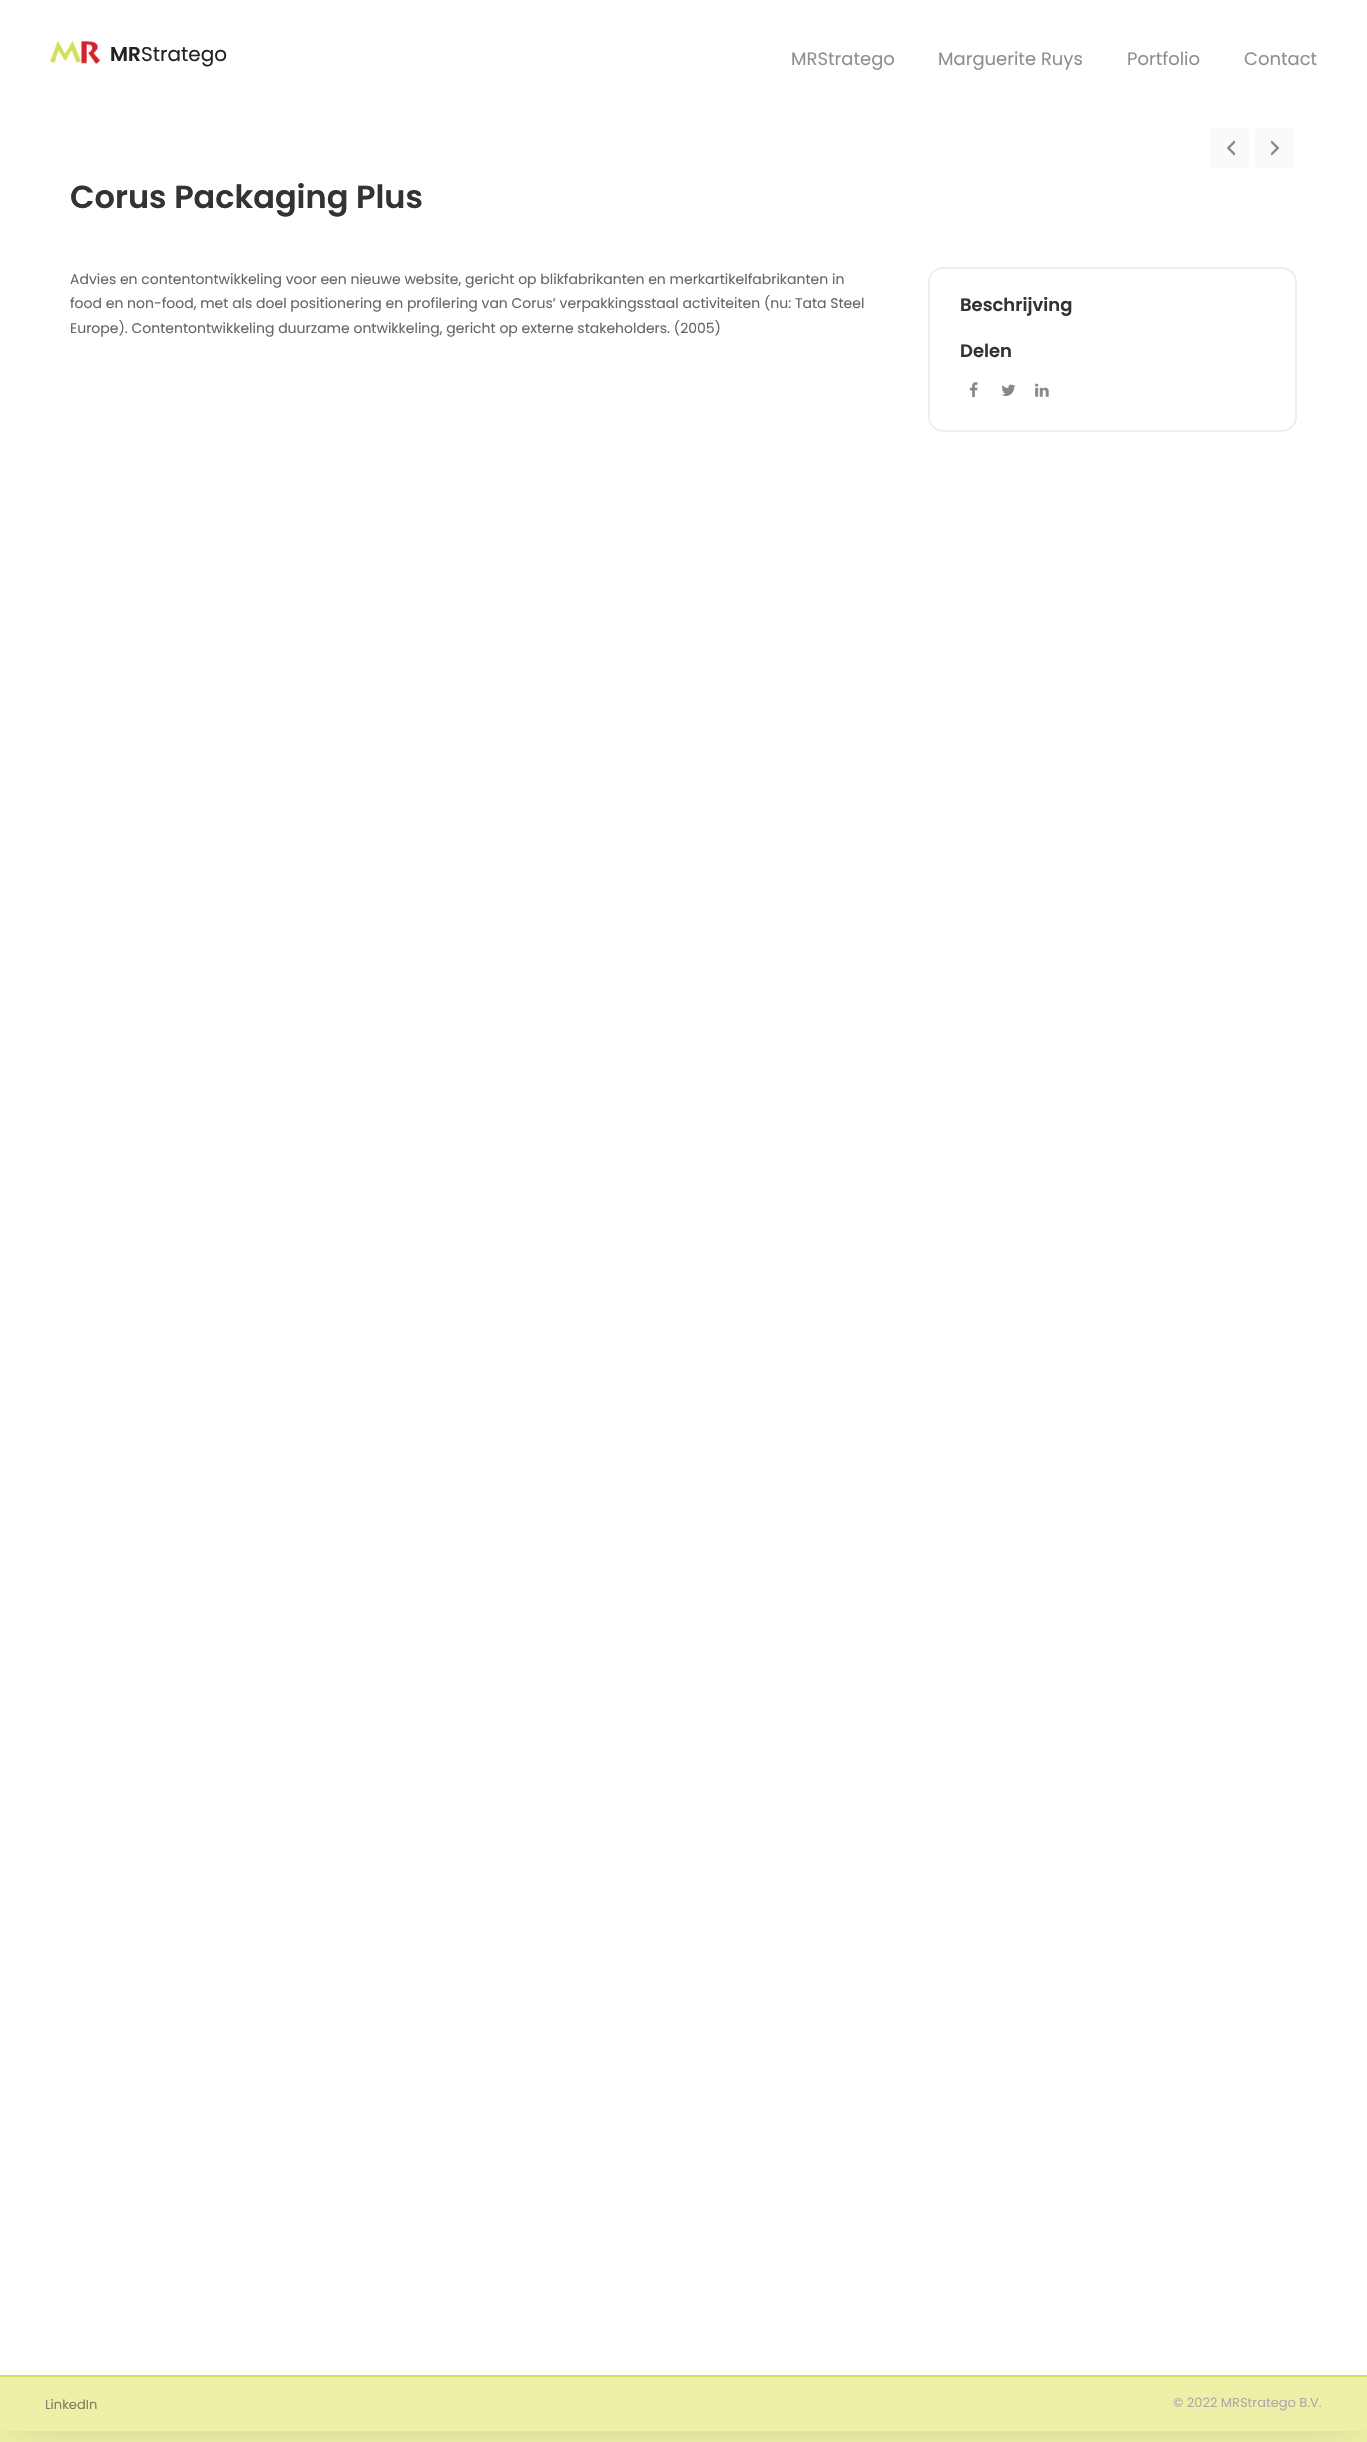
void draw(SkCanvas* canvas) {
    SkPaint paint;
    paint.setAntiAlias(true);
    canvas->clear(0xFFEFF0A8);
    paint.setColor(0x33000000);
    paint.setMaskFilter(SkMaskFilter::MakeBlur(kNormal_SkBlurStyle, 20));
    canvas->drawRect(SkRect::MakeXYWH(10, -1, 1347, 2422), paint);
    paint.setMaskFilter(nullptr);
    paint.setColor(0xFFFFFFFF);
    canvas->drawRect(SkRect::MakeXYWH(0, 0, 1367, 2375), paint);
    canvas->drawImageRect(SkImages::DeferredFromEncodedData(SkData::MakeFromFileName("img1.png")), SkRect::MakeXYWH(50, 40, 50, 24), SkSamplingOptions());
    SkFont font1(fontMgr->matchFamilyStyle("Poppins", SkFontStyle(600, SkFontStyle::kNormal_Width, SkFontStyle::kUpright_Slant)), 20);
    font1.setSubpixel(true);
    paint.setColor(0xFF222222);
    canvas->drawString("MR", 110, 61, font1, paint);
    SkFont font2(fontMgr->matchFamilyStyle("Poppins", SkFontStyle::Normal()), 20);
    font2.setSubpixel(true);
    canvas->drawString("Stratego", 141, 61, font2, paint);
    SkFont font3(fontMgr->matchFamilyStyle("Poppins", SkFontStyle::Normal()), 18);
    font3.setSubpixel(true);
    paint.setColor(0xFF8F8F8F);
    canvas->drawString("MRStratego", 791, 65, font3, paint);
    canvas->drawString("Marguerite Ruys", 938, 65, font3, paint);
    canvas->drawString("Portfolio", 1127, 65, font3, paint);
    canvas->drawString("Contact", 1244, 65, font3, paint);
    paint.setColor(0xFFFAFAFA);
    canvas->drawRoundRect(SkRect::MakeXYWH(1210, 128, 40, 40), 5, 5, paint);
    canvas->drawImageRect(SkImages::DeferredFromEncodedData(SkData::MakeFromFileName("img2.png")), SkRect::MakeXYWH(1226, 140, 10, 16), SkSamplingOptions());
    canvas->drawRoundRect(SkRect::MakeXYWH(1254, 128, 40, 40), 5, 5, paint);
    canvas->drawImageRect(SkImages::DeferredFromEncodedData(SkData::MakeFromFileName("img3.png")), SkRect::MakeXYWH(1270, 140, 10, 16), SkSamplingOptions());
    SkFont font4(fontMgr->matchFamilyStyle("Poppins", SkFontStyle(600, SkFontStyle::kNormal_Width, SkFontStyle::kUpright_Slant)), 32);
    font4.setSubpixel(true);
    paint.setColor(0xFF333333);
    canvas->drawString("Corus Packaging Plus", 70, 208, font4, paint);
    SkFont font5(fontMgr->matchFamilyStyle("Poppins", SkFontStyle::Normal()), 14);
    font5.setSubpixel(true);
    paint.setColor(0xFF666666);
    canvas->drawString("Advies en contentontwikkeling voor een nieuwe website, gericht op blikfabrikanten en merkartikelfabrikanten in", 70, 284, font5, paint);
    canvas->drawString("food en non-food, met als doel positionering en profilering van Corus’ verpakkingsstaal activiteiten (nu: Tata Steel", 70, 308, font5, paint);
    canvas->drawString("Europe). Contentontwikkeling duurzame ontwikkeling, gericht op externe stakeholders. (2005)", 70, 333, font5, paint);
    paint.setStyle(SkPaint::kStroke_Style);
    paint.setStrokeWidth(2);
    paint.setColor(0xFFEEEEEE);
    canvas->drawRoundRect(SkRect::MakeXYWH(929, 268, 367, 163), 14, 14, paint);
    SkFont font6(fontMgr->matchFamilyStyle("Poppins", SkFontStyle(600, SkFontStyle::kNormal_Width, SkFontStyle::kUpright_Slant)), 18);
    font6.setSubpixel(true);
    paint.setStyle(SkPaint::kFill_Style);
    paint.setColor(0xFF333333);
    canvas->drawString("Beschrijving", 960, 311, font6, paint);
    canvas->drawString("Delen", 960, 357, font6, paint);
    canvas->drawImageRect(SkImages::DeferredFromEncodedData(SkData::MakeFromFileName("img4.png")), SkRect::MakeXYWH(969, 382, 9, 16), SkSamplingOptions());
    canvas->drawImageRect(SkImages::DeferredFromEncodedData(SkData::MakeFromFileName("img5.png")), SkRect::MakeXYWH(1001, 384, 15, 12), SkSamplingOptions());
    canvas->drawImageRect(SkImages::DeferredFromEncodedData(SkData::MakeFromFileName("img6.png")), SkRect::MakeXYWH(1035, 383, 14, 14), SkSamplingOptions());
    paint.setColor(0xFFEFF0A8);
    canvas->drawRect(SkRect::MakeXYWH(0, 2377, 1367, 54), paint);
    paint.setColor(0xFFD5DE5D);
    canvas->drawRect(SkRect::MakeXYWH(0, 2375, 1367, 2), paint);
    SkFont font7(fontMgr->matchFamilyStyle("Poppins", SkFontStyle::Normal()), 13);
    font7.setSubpixel(true);
    paint.setColor(0xFF7E7F62);
    canvas->drawString("LinkedIn", 45, 2409, font7, paint);
    paint.setColor(0xFFAAAAAA);
    canvas->drawString("© 2022 MRStratego B.V.", 1173, 2407, font7, paint);
}
